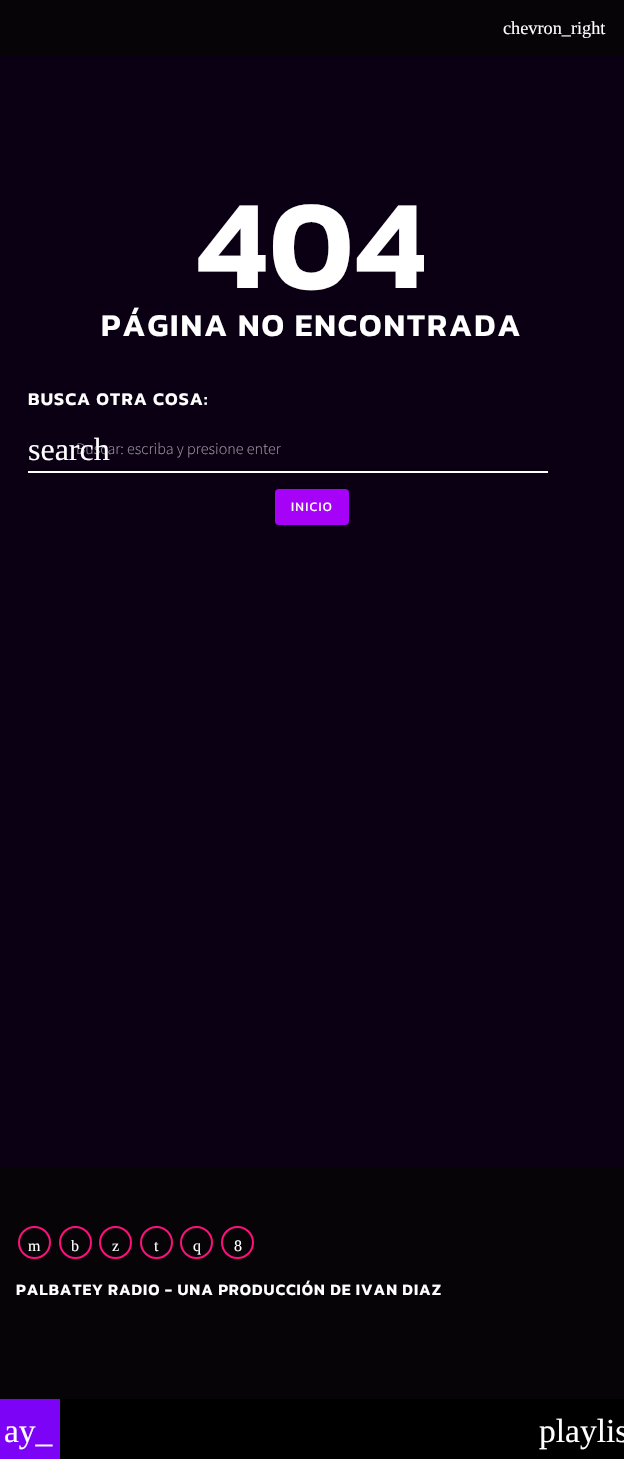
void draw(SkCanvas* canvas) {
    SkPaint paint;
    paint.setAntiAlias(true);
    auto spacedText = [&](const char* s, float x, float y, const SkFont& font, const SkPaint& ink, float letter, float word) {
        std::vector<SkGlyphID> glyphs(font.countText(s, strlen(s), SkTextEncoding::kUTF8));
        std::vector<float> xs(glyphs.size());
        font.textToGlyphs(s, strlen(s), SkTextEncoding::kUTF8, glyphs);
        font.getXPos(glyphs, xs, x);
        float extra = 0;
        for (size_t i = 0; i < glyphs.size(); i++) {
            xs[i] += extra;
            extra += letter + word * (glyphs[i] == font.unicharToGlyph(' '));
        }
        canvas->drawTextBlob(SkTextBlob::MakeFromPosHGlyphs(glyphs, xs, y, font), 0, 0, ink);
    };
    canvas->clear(0xFF0B0013);
    paint.setColor(0xFF060407);
    canvas->drawRect(SkRect::MakeXYWH(0, 0, 624, 56), paint);
    SkFont font1(fontMgr->matchFamilyStyle("Liberation Serif", SkFontStyle::Normal()), 18.25f);
    font1.setSubpixel(true);
    paint.setColor(0xFFFFFFFF);
    canvas->drawString("chevron_right", 503, 34, font1, paint);
    SkFont font2(fontMgr->matchFamilyStyle("Kanit", SkFontStyle(600, SkFontStyle::kNormal_Width, SkFontStyle::kUpright_Slant)), 128);
    font2.setSubpixel(true);
    spacedText("404", 197, 288, font2, paint, 1.9f, 0);
    SkFont font3(fontMgr->matchFamilyStyle("Kanit", SkFontStyle(600, SkFontStyle::kNormal_Width, SkFontStyle::kUpright_Slant)), 32);
    font3.setSubpixel(true);
    spacedText("PÁGINA NO ENCONTRADA", 101, 336, font3, paint, 1.9f, 0);
    SkFont font4(fontMgr->matchFamilyStyle("Kanit", SkFontStyle(600, SkFontStyle::kNormal_Width, SkFontStyle::kUpright_Slant)), 18);
    font4.setSubpixel(true);
    spacedText("BUSCA OTRA COSA:", 28, 405, font4, paint, 1.1f, 0);
    SkFont font5(fontMgr->matchFamilyStyle("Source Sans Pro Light", SkFontStyle(300, SkFontStyle::kNormal_Width, SkFontStyle::kUpright_Slant)), 16);
    font5.setSubpixel(true);
    paint.setColor(0xFF9D99A1);
    canvas->drawString("Buscar: escriba y presione enter", 76, 454, font5, paint);
    SkFont font6(fontMgr->matchFamilyStyle("Liberation Serif", SkFontStyle::Normal()), 32);
    font6.setSubpixel(true);
    paint.setColor(0xFFFFFFFF);
    canvas->drawString("search", 28, 460, font6, paint);
    canvas->drawRect(SkRect::MakeXYWH(28, 471, 520, 2), paint);
    paint.setColor(0xFFA502F7);
    canvas->drawRoundRect(SkRect::MakeXYWH(275, 489, 74, 36), 4, 4, paint);
    SkFont font7(fontMgr->matchFamilyStyle("Kanit", SkFontStyle::Normal()), 13);
    font7.setSubpixel(true);
    paint.setColor(0xFFFFFFFF);
    spacedText("INICIO", 291, 511, font7, paint, 1.25f, 0);
    paint.setColor(0xFF060407);
    canvas->drawRect(SkRect::MakeXYWH(0, 1167, 624, 232), paint);
    paint.setStyle(SkPaint::kStroke_Style);
    paint.setStrokeWidth(2);
    paint.setColor(0xFFFF0F7B);
    canvas->drawCircle(34.5f, 1242.5f, 15.5f, paint);
    SkFont font8(fontMgr->matchFamilyStyle("Liberation Serif", SkFontStyle::Normal()), 16);
    font8.setSubpixel(true);
    paint.setStyle(SkPaint::kFill_Style);
    paint.setColor(0xFFFFFFFF);
    canvas->drawString("m", 28, 1251, font8, paint);
    paint.setStyle(SkPaint::kStroke_Style);
    paint.setColor(0xFFFF0F7B);
    canvas->drawCircle(75.5f, 1242.5f, 15.5f, paint);
    paint.setStyle(SkPaint::kFill_Style);
    paint.setColor(0xFFFFFFFF);
    canvas->drawString("b", 71, 1251, font8, paint);
    paint.setStyle(SkPaint::kStroke_Style);
    paint.setColor(0xFFFF0F7B);
    canvas->drawCircle(115.5f, 1242.5f, 15.5f, paint);
    paint.setStyle(SkPaint::kFill_Style);
    paint.setColor(0xFFFFFFFF);
    canvas->drawString("z", 112, 1251, font8, paint);
    paint.setStyle(SkPaint::kStroke_Style);
    paint.setColor(0xFFFF0F7B);
    canvas->drawCircle(156.5f, 1242.5f, 15.5f, paint);
    paint.setStyle(SkPaint::kFill_Style);
    paint.setColor(0xFFFFFFFF);
    canvas->drawString("t", 154, 1251, font8, paint);
    paint.setStyle(SkPaint::kStroke_Style);
    paint.setColor(0xFFFF0F7B);
    canvas->drawCircle(196.5f, 1242.5f, 15.5f, paint);
    paint.setStyle(SkPaint::kFill_Style);
    paint.setColor(0xFFFFFFFF);
    canvas->drawString("q", 193, 1251, font8, paint);
    paint.setStyle(SkPaint::kStroke_Style);
    paint.setColor(0xFFFF0F7B);
    canvas->drawCircle(237.5f, 1242.5f, 15.5f, paint);
    paint.setStyle(SkPaint::kFill_Style);
    paint.setColor(0xFFFFFFFF);
    canvas->drawString("8", 234, 1251, font8, paint);
    SkFont font9(fontMgr->matchFamilyStyle("Kanit", SkFontStyle(600, SkFontStyle::kNormal_Width, SkFontStyle::kUpright_Slant)), 16);
    font9.setSubpixel(true);
    spacedText("PALBATEY RADIO - UNA PRODUCCIÓN DE IVAN DIAZ", 16, 1295, font9, paint, 0.95f, 0);
    paint.setColor(0xFF000000);
    canvas->drawRect(SkRect::MakeXYWH(60, 1399, 564, 60), paint);
    paint.setColor(0xFF7C03F6);
    canvas->drawRect(SkRect::MakeXYWH(0, 1399, 60, 60), paint);
    SkFont font10(fontMgr->matchFamilyStyle("Liberation Serif", SkFontStyle::Normal()), 33.5f);
    font10.setSubpixel(true);
    paint.setColor(0xFFFFFFFF);
    canvas->drawString("ay_", 4, 1442, font10, paint);
    canvas->drawString("playlis", 539, 1442, font10, paint);
}
